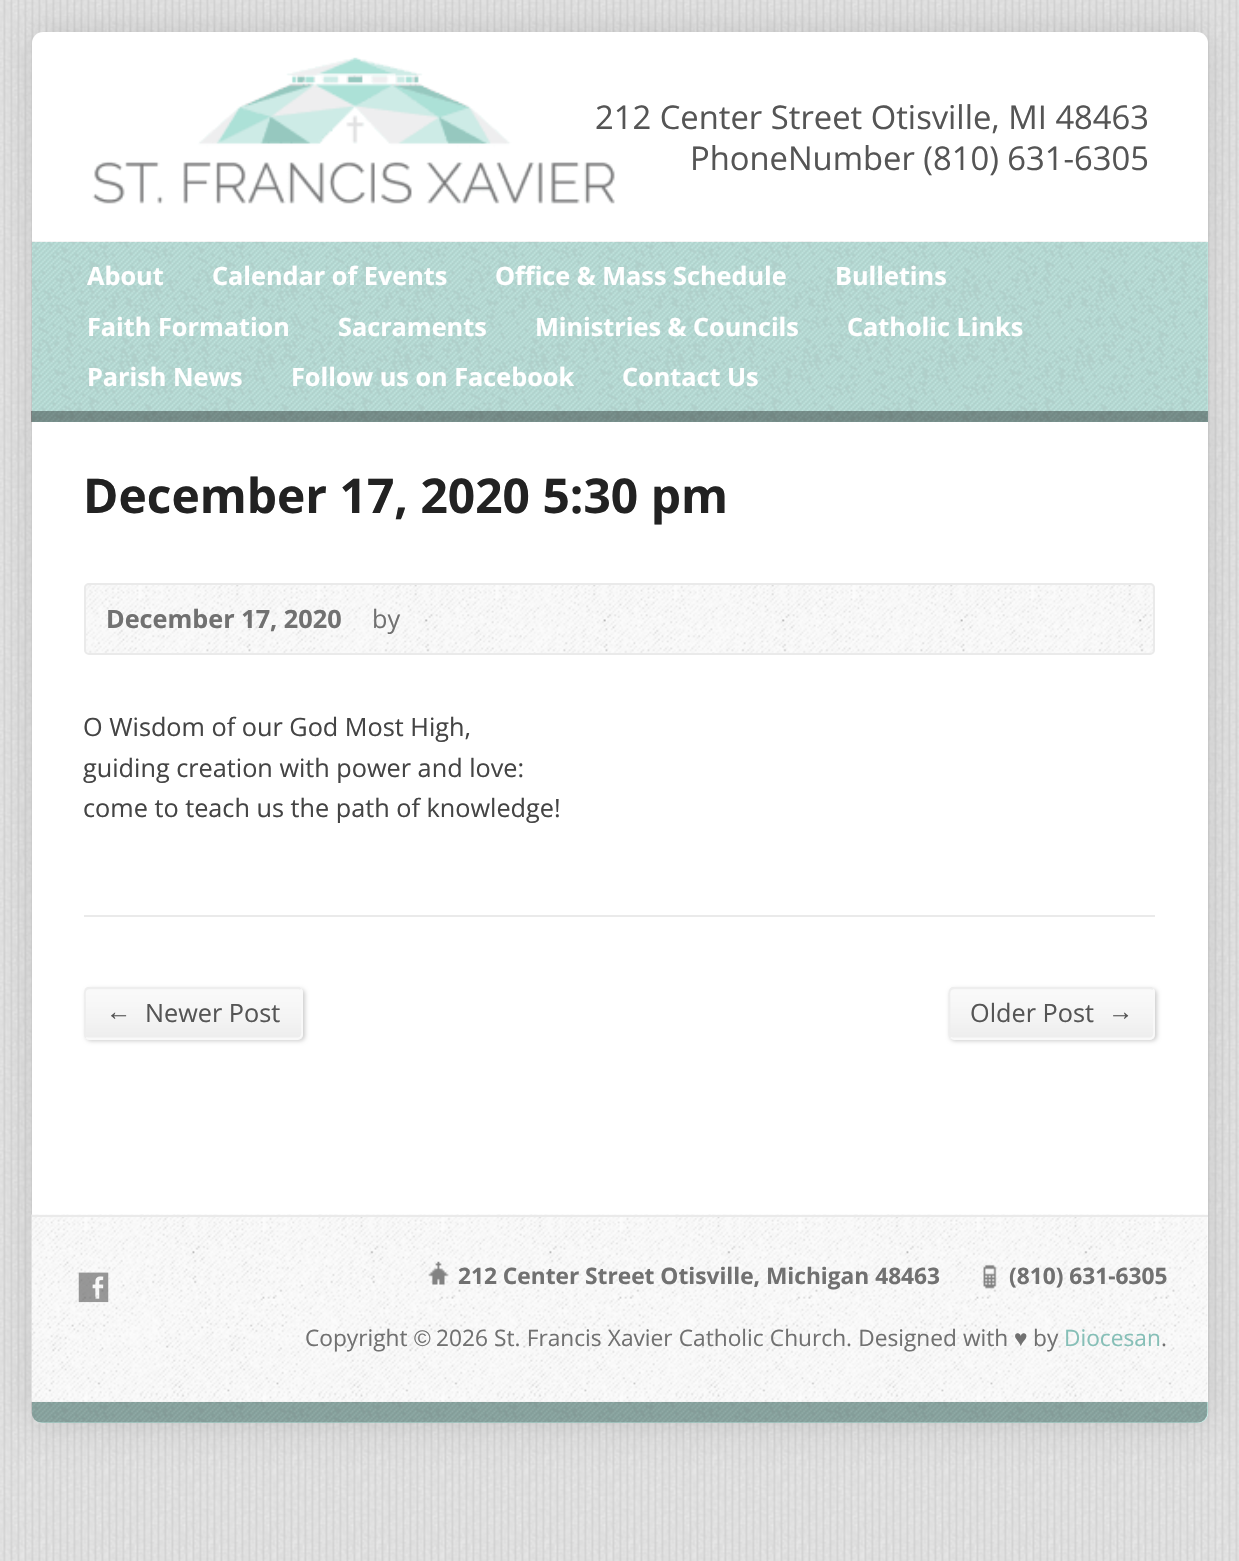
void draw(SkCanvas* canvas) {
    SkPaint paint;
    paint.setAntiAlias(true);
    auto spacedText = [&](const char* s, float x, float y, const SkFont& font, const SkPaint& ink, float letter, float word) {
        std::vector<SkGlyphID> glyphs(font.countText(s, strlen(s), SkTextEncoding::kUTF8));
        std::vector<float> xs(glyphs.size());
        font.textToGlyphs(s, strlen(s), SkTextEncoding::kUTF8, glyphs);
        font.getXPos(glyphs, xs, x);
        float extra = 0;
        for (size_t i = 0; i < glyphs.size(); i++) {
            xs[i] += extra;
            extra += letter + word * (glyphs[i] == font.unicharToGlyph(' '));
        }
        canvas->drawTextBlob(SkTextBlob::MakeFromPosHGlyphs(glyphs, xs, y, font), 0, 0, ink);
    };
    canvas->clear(0xFFF0F0F0);
    canvas->drawImageRect(SkImages::DeferredFromEncodedData(SkData::MakeFromFileName("img1.png")), SkRect::MakeXYWH(0, 0, 1239, 1561), SkSamplingOptions());
    paint.setColor(0x1F000000);
    paint.setMaskFilter(SkMaskFilter::MakeBlur(kNormal_SkBlurStyle, 17.5f));
    canvas->drawRoundRect(SkRect::MakeXYWH(32, 32, 1176, 1391), 11, 11, paint);
    paint.setMaskFilter(nullptr);
    paint.setColor(0xFFFFFFFF);
    canvas->drawRoundRect(SkRect::MakeXYWH(32, 32, 1176, 1391), 11, 11, paint);
    SkFont font1(fontMgr->matchFamilyStyle("Open Sans", SkFontStyle::Normal()), 32.75f);
    font1.setSubpixel(true);
    paint.setColor(0xFF555555);
    canvas->drawString("212 Center Street Otisville, MI 48463", 595, 129, font1, paint);
    canvas->drawImageRect(SkImages::DeferredFromEncodedData(SkData::MakeFromFileName("img2.png")), SkRect::MakeXYWH(92, 57, 523, 147), SkSamplingOptions());
    canvas->drawString("PhoneNumber (810) 631-6305", 690, 170, font1, paint);
    paint.setColor(0xFFBFEAE3);
    canvas->drawRect(SkRect::MakeXYWH(32, 242, 1176, 180), paint);
    canvas->drawImageRect(SkImages::DeferredFromEncodedData(SkData::MakeFromFileName("img3.png")), SkRect::MakeXYWH(31, 241, 1177, 181), SkSamplingOptions());
    SkFont font2(fontMgr->matchFamilyStyle("Open Sans", SkFontStyle::Bold()), 25.25f);
    font2.setSubpixel(true);
    paint.setColor(0xFFFFFFFF);
    canvas->drawString("About", 87, 285, font2, paint);
    canvas->drawString("Calendar of Events", 212, 285, font2, paint);
    canvas->drawString("Office & Mass Schedule", 495, 285, font2, paint);
    canvas->drawString("Bulletins", 835, 285, font2, paint);
    canvas->drawString("Faith Formation", 87, 336, font2, paint);
    canvas->drawString("Sacraments", 338, 336, font2, paint);
    canvas->drawString("Ministries & Councils", 535, 336, font2, paint);
    canvas->drawString("Catholic Links", 847, 336, font2, paint);
    canvas->drawString("Parish News", 87, 386, font2, paint);
    canvas->drawString("Follow us on Facebook", 291, 386, font2, paint);
    canvas->drawString("Contact Us", 622, 386, font2, paint);
    paint.setColor(0x59000000);
    canvas->drawRect(SkRect::MakeXYWH(31, 411, 1177, 11), paint);
    SkFont font3(fontMgr->matchFamilyStyle("Open Sans", SkFontStyle::Bold()), 47.9f);
    font3.setSubpixel(true);
    paint.setColor(0xFF222222);
    canvas->drawString("December 17, 2020 5:30 pm", 83, 513, font3, paint);
    canvas->drawImageRect(SkImages::DeferredFromEncodedData(SkData::MakeFromFileName("img4.png")), SkRect::MakeXYWH(84, 583, 1071, 72), SkSamplingOptions());
    paint.setStyle(SkPaint::kStroke_Style);
    paint.setStrokeWidth(2);
    paint.setColor(0xFFEAEAEA);
    canvas->drawRoundRect(SkRect::MakeXYWH(85, 584, 1069, 70), 4, 4, paint);
    paint.setStyle(SkPaint::kFill_Style);
    paint.setColor(0xFF717171);
    canvas->drawString("December 17, 2020", 106, 628, font2, paint);
    SkFont font4(fontMgr->matchFamilyStyle("Open Sans", SkFontStyle::Normal()), 25.25f);
    font4.setSubpixel(true);
    canvas->drawString("by", 372, 628, font4, paint);
    paint.setColor(0xFF444444);
    canvas->drawString("O Wisdom of our God Most High,", 83, 736, font4, paint);
    canvas->drawString("guiding creation with power and love:", 83, 777, font4, paint);
    canvas->drawString("come to teach us the path of knowledge!", 83, 817, font4, paint);
    paint.setColor(0xFFEAEAEA);
    canvas->drawRect(SkRect::MakeXYWH(84, 915, 1071, 2), paint);
    paint.setColor(0x33000000);
    paint.setMaskFilter(SkMaskFilter::MakeBlur(kNormal_SkBlurStyle, 2));
    canvas->drawRoundRect(SkRect::MakeXYWH(86, 989, 219, 52), 5, 5, paint);
    paint.setMaskFilter(nullptr);
    paint.setColor(0xFFF9F9F9);
    canvas->drawRoundRect(SkRect::MakeXYWH(84, 987, 219, 53), 5, 5, paint);
    canvas->drawImageRect(SkImages::DeferredFromEncodedData(SkData::MakeFromFileName("img5.png")), SkRect::MakeXYWH(84, 987, 218, 52), SkSamplingOptions());
    paint.setStyle(SkPaint::kStroke_Style);
    paint.setStrokeWidth(1.8f);
    canvas->drawPath(SkPathBuilder().moveTo(300.5f, 989).cubicTo(303, 991.5f, 302, 997, 302, 999).lineTo(302, 1027).cubicTo(302, 1030.5f, 303.5f, 1038.5f, 297.5f, 1038.5f).lineTo(88, 1038.5f).lineTo(86, 1037.5f).detach(), paint);
    paint.setColor(0xFFEEEEEE);
    canvas->drawPath(SkPathBuilder().moveTo(86, 1037.5f).cubicTo(84, 1035, 85, 1029.5f, 85, 1027).lineTo(85, 999).cubicTo(85, 996, 83.5f, 988, 89, 988).lineTo(299, 988).lineTo(300.5f, 989).detach(), paint);
    SkFont font5(fontMgr->matchFamilyStyle("Liberation Sans", SkFontStyle::Normal()), 25.25f);
    font5.setSubpixel(true);
    paint.setStyle(SkPaint::kFill_Style);
    paint.setColor(0xFF555555);
    canvas->drawString("←", 106, 1020, font5, paint);
    canvas->drawString("Newer Post", 145, 1022, font4, paint);
    paint.setColor(0x33000000);
    paint.setMaskFilter(SkMaskFilter::MakeBlur(kNormal_SkBlurStyle, 2));
    canvas->drawRoundRect(SkRect::MakeXYWH(950, 989, 207, 52), 5, 5, paint);
    paint.setMaskFilter(nullptr);
    paint.setColor(0xFFF9F9F9);
    canvas->drawRoundRect(SkRect::MakeXYWH(949, 987, 206, 53), 5, 5, paint);
    canvas->drawImageRect(SkImages::DeferredFromEncodedData(SkData::MakeFromFileName("img6.png")), SkRect::MakeXYWH(949, 987, 206, 52), SkSamplingOptions());
    paint.setStyle(SkPaint::kStroke_Style);
    canvas->drawPath(SkPathBuilder().moveTo(1153, 989).cubicTo(1155, 991.5f, 1154, 997, 1154, 999).lineTo(1154, 1027).cubicTo(1154, 1030.5f, 1155.5f, 1038.5f, 1150, 1038.5f).lineTo(953.5f, 1038.5f).lineTo(950.5f, 1037.5f).detach(), paint);
    paint.setColor(0xFFEEEEEE);
    canvas->drawPath(SkPathBuilder().moveTo(950.5f, 1037.5f).cubicTo(948.5f, 1035, 949.5f, 1029.5f, 949.5f, 1027).lineTo(949.5f, 999).cubicTo(949.5f, 996, 948, 988, 954, 988).lineTo(1150, 988).lineTo(1153, 989).detach(), paint);
    paint.setStyle(SkPaint::kFill_Style);
    paint.setColor(0xFF555555);
    canvas->drawString("Older Post", 970, 1022, font4, paint);
    canvas->drawString("→", 1108, 1020, font5, paint);
    canvas->drawImageRect(SkImages::DeferredFromEncodedData(SkData::MakeFromFileName("img7.png")), SkRect::MakeXYWH(31, 1214, 1177, 188), SkSamplingOptions());
    paint.setColor(0xFFEAEAEA);
    canvas->drawRect(SkRect::MakeXYWH(32, 1215, 1176, 2), paint);
    canvas->drawImageRect(SkImages::DeferredFromEncodedData(SkData::MakeFromFileName("img8.png")), SkRect::MakeXYWH(78, 1272, 31, 31), SkSamplingOptions());
    canvas->drawImageRect(SkImages::DeferredFromEncodedData(SkData::MakeFromFileName("img9.png")), SkRect::MakeXYWH(428, 1261, 21, 24), SkSamplingOptions());
    SkFont font6(fontMgr->matchFamilyStyle("Open Sans", SkFontStyle::Bold()), 22.7f);
    font6.setSubpixel(true);
    paint.setColor(0xFF717171);
    canvas->drawString("212 Center Street Otisville, Michigan 48463", 458, 1284, font6, paint);
    canvas->drawImageRect(SkImages::DeferredFromEncodedData(SkData::MakeFromFileName("img10.png")), SkRect::MakeXYWH(983, 1264, 14, 25), SkSamplingOptions());
    canvas->drawString("(810) 631-6305", 1009, 1284, font6, paint);
    SkFont font7(fontMgr->matchFamilyStyle("Open Sans", SkFontStyle::Normal()), 22.7f);
    font7.setSubpixel(true);
    canvas->drawString("Copyright", 305, 1346, font7, paint);
    SkFont font8(fontMgr->matchFamilyStyle("Liberation Sans", SkFontStyle::Normal()), 22.7f);
    font8.setSubpixel(true);
    canvas->drawString("©", 414, 1346, font8, paint);
    spacedText("2026 St. Francis Xavier Catholic Church. Designed with", 436, 1346, font7, paint, 0, 0.25f);
    canvas->drawString("♥", 1014, 1346, font8, paint);
    canvas->drawString("by", 1033, 1346, font7, paint);
    paint.setColor(0xFF86BFB7);
    canvas->drawString("Diocesan", 1064, 1346, font7, paint);
    paint.setColor(0xFF717171);
    canvas->drawString(".", 1161, 1346, font7, paint);
    paint.setColor(0xFFBFEAE3);
    canvas->drawPath(SkPathBuilder().moveTo(32, 1402).lineTo(1208, 1402).lineTo(1208, 1412.5f).cubicTo(1208, 1418.5f, 1203.5f, 1423, 1197.5f, 1423).lineTo(42.5f, 1423).cubicTo(36.5f, 1423, 32, 1418.5f, 32, 1412.5f).close().detach(), paint);
    canvas->drawImageRect(SkImages::DeferredFromEncodedData(SkData::MakeFromFileName("img11.png")), SkRect::MakeXYWH(31, 1401, 1177, 22), SkSamplingOptions());
}
